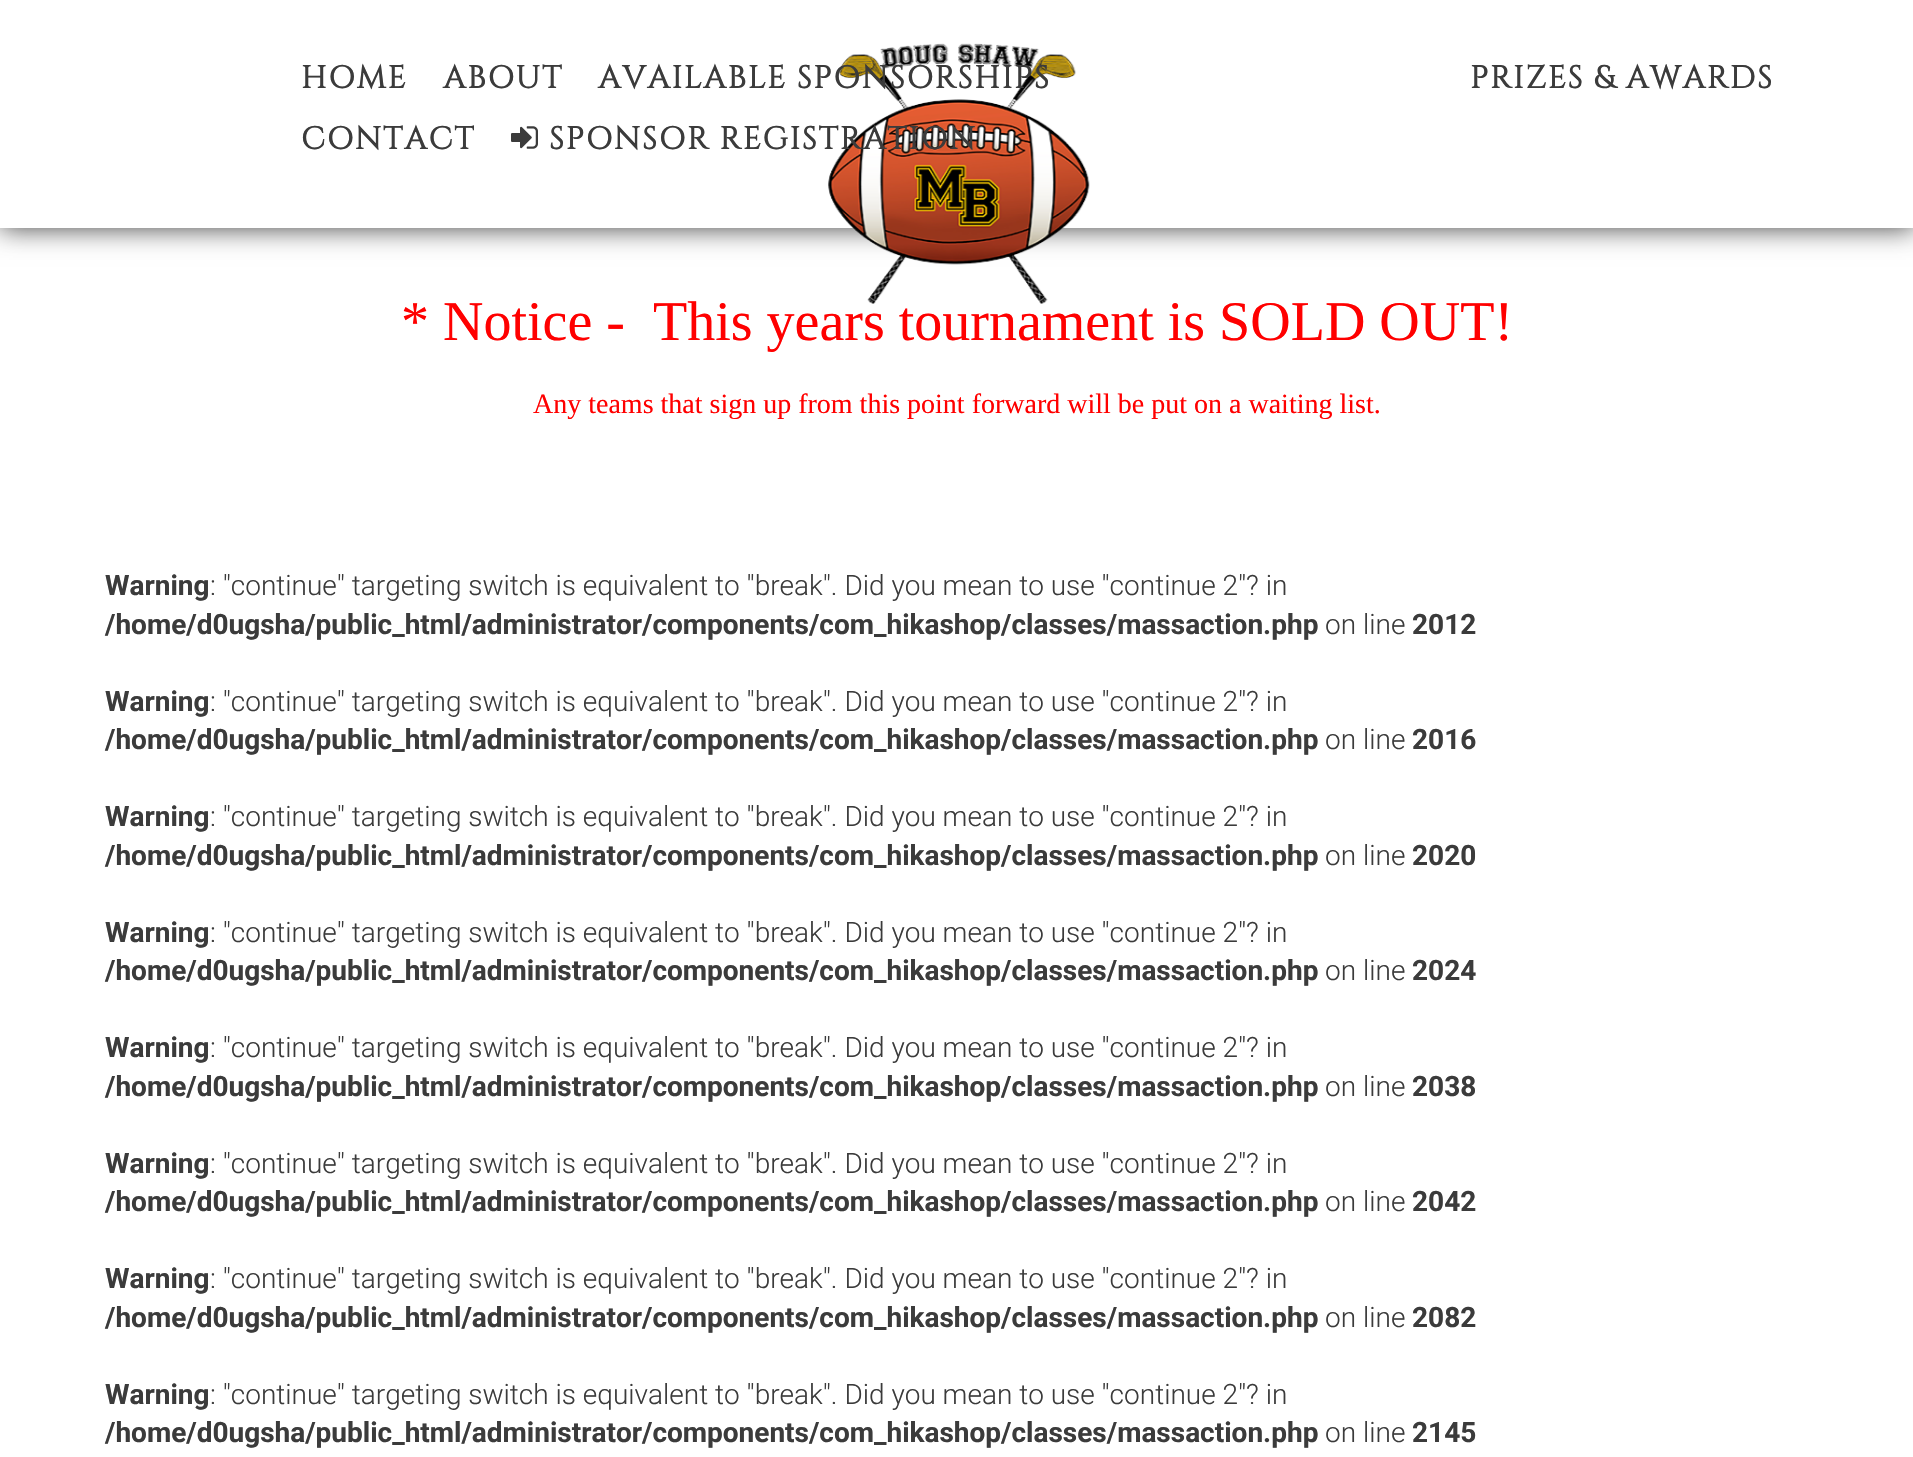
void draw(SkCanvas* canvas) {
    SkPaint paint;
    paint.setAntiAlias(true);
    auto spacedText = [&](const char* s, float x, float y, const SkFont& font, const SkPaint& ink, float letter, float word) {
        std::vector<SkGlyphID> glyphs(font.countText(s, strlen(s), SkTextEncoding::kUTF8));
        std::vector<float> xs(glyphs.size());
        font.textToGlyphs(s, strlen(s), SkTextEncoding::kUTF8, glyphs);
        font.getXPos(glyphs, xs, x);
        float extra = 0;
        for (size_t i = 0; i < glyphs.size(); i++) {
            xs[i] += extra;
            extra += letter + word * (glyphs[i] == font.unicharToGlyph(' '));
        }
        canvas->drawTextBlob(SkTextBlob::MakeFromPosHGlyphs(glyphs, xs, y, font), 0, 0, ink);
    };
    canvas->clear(0xFFFFFFFF);
    paint.setColor(0xBF000000);
    paint.setMaskFilter(SkMaskFilter::MakeBlur(kNormal_SkBlurStyle, 13));
    canvas->drawRect(SkRect::MakeXYWH(0, 0, 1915, 228), paint);
    paint.setMaskFilter(nullptr);
    paint.setColor(0xFFFFFFFF);
    canvas->drawRect(SkRect::MakeXYWH(0, 0, 1913, 228), paint);
    SkFont font1(fontMgr->matchFamilyStyle("Liberation Serif", SkFontStyle::Normal()), 56);
    font1.setSubpixel(true);
    paint.setColor(0xFFFF0000);
    canvas->drawString("This years tournament is SOLD OUT!", 653, 340, font1, paint);
    canvas->drawImageRect(SkImages::DeferredFromEncodedData(SkData::MakeFromFileName("img1.png")), SkRect::MakeXYWH(828, 43, 262, 261), SkSamplingOptions());
    SkFont font2(fontMgr->matchFamilyStyle("Cinzel", SkFontStyle::Bold()), 31.5f);
    font2.setSubpixel(true);
    paint.setColor(0xFF3B3B3B);
    spacedText("HOME", 301, 88, font2, paint, 1.75f, 0);
    spacedText("ABOUT", 443, 88, font2, paint, 1.75f, 0);
    spacedText("AVAILABLE SPONSORSHIPS", 598, 88, font2, paint, 1.75f, 0);
    spacedText("PRIZES & AWARDS", 1470, 88, font2, paint, 1.75f, 0);
    spacedText("CONTACT", 301, 149, font2, paint, 1.75f, 0);
    canvas->drawImageRect(SkImages::DeferredFromEncodedData(SkData::MakeFromFileName("img2.png")), SkRect::MakeXYWH(511, 126, 27, 23), SkSamplingOptions());
    spacedText("SPONSOR REGISTRATION", 549, 149, font2, paint, 1.75f, 0);
    paint.setColor(0xFFFF0000);
    canvas->drawString("* Notice -", 401, 340, font1, paint);
    SkFont font3(fontMgr->matchFamilyStyle("Liberation Serif", SkFontStyle::Normal()), 28);
    font3.setSubpixel(true);
    canvas->drawString("Any teams that sign up from this point forward will be put on a waiting list.", 533, 413, font3, paint);
    SkFont font4(fontMgr->matchFamilyStyle("Roboto", SkFontStyle::Bold()), 28);
    font4.setSubpixel(true);
    paint.setColor(0xFF3B3B3B);
    canvas->drawString("Warning", 105, 595, font4, paint);
    SkFont font5(fontMgr->matchFamilyStyle("Roboto", SkFontStyle(300, SkFontStyle::kNormal_Width, SkFontStyle::kUpright_Slant)), 28);
    font5.setSubpixel(true);
    canvas->drawString(": \"continue\" targeting switch is equivalent to \"break\". Did you mean to use \"continue 2\"? in", 210, 595, font5, paint);
    canvas->drawString("/home/d0ugsha/public_html/administrator/components/com_hikashop/classes/massaction.php", 105, 634, font4, paint);
    canvas->drawString("on line", 1325, 634, font5, paint);
    canvas->drawString("2012", 1412, 634, font4, paint);
    canvas->drawString("Warning", 105, 711, font4, paint);
    canvas->drawString(": \"continue\" targeting switch is equivalent to \"break\". Did you mean to use \"continue 2\"? in", 210, 711, font5, paint);
    canvas->drawString("/home/d0ugsha/public_html/administrator/components/com_hikashop/classes/massaction.php", 105, 749, font4, paint);
    canvas->drawString("on line", 1325, 749, font5, paint);
    canvas->drawString("2016", 1412, 749, font4, paint);
    canvas->drawString("Warning", 105, 826, font4, paint);
    canvas->drawString(": \"continue\" targeting switch is equivalent to \"break\". Did you mean to use \"continue 2\"? in", 210, 826, font5, paint);
    canvas->drawString("/home/d0ugsha/public_html/administrator/components/com_hikashop/classes/massaction.php", 105, 865, font4, paint);
    canvas->drawString("on line", 1325, 865, font5, paint);
    canvas->drawString("2020", 1412, 865, font4, paint);
    canvas->drawString("Warning", 105, 942, font4, paint);
    canvas->drawString(": \"continue\" targeting switch is equivalent to \"break\". Did you mean to use \"continue 2\"? in", 210, 942, font5, paint);
    canvas->drawString("/home/d0ugsha/public_html/administrator/components/com_hikashop/classes/massaction.php", 105, 980, font4, paint);
    canvas->drawString("on line", 1325, 980, font5, paint);
    canvas->drawString("2024", 1412, 980, font4, paint);
    canvas->drawString("Warning", 105, 1057, font4, paint);
    canvas->drawString(": \"continue\" targeting switch is equivalent to \"break\". Did you mean to use \"continue 2\"? in", 210, 1057, font5, paint);
    canvas->drawString("/home/d0ugsha/public_html/administrator/components/com_hikashop/classes/massaction.php", 105, 1096, font4, paint);
    canvas->drawString("on line", 1325, 1096, font5, paint);
    canvas->drawString("2038", 1412, 1096, font4, paint);
    canvas->drawString("Warning", 105, 1173, font4, paint);
    canvas->drawString(": \"continue\" targeting switch is equivalent to \"break\". Did you mean to use \"continue 2\"? in", 210, 1173, font5, paint);
    canvas->drawString("/home/d0ugsha/public_html/administrator/components/com_hikashop/classes/massaction.php", 105, 1211, font4, paint);
    canvas->drawString("on line", 1325, 1211, font5, paint);
    canvas->drawString("2042", 1412, 1211, font4, paint);
    canvas->drawString("Warning", 105, 1288, font4, paint);
    canvas->drawString(": \"continue\" targeting switch is equivalent to \"break\". Did you mean to use \"continue 2\"? in", 210, 1288, font5, paint);
    canvas->drawString("/home/d0ugsha/public_html/administrator/components/com_hikashop/classes/massaction.php", 105, 1327, font4, paint);
    canvas->drawString("on line", 1325, 1327, font5, paint);
    canvas->drawString("2082", 1412, 1327, font4, paint);
    canvas->drawString("Warning", 105, 1404, font4, paint);
    canvas->drawString(": \"continue\" targeting switch is equivalent to \"break\". Did you mean to use \"continue 2\"? in", 210, 1404, font5, paint);
    canvas->drawString("/home/d0ugsha/public_html/administrator/components/com_hikashop/classes/massaction.php", 105, 1442, font4, paint);
    canvas->drawString("on line", 1325, 1442, font5, paint);
    canvas->drawString("2145", 1412, 1442, font4, paint);
}
